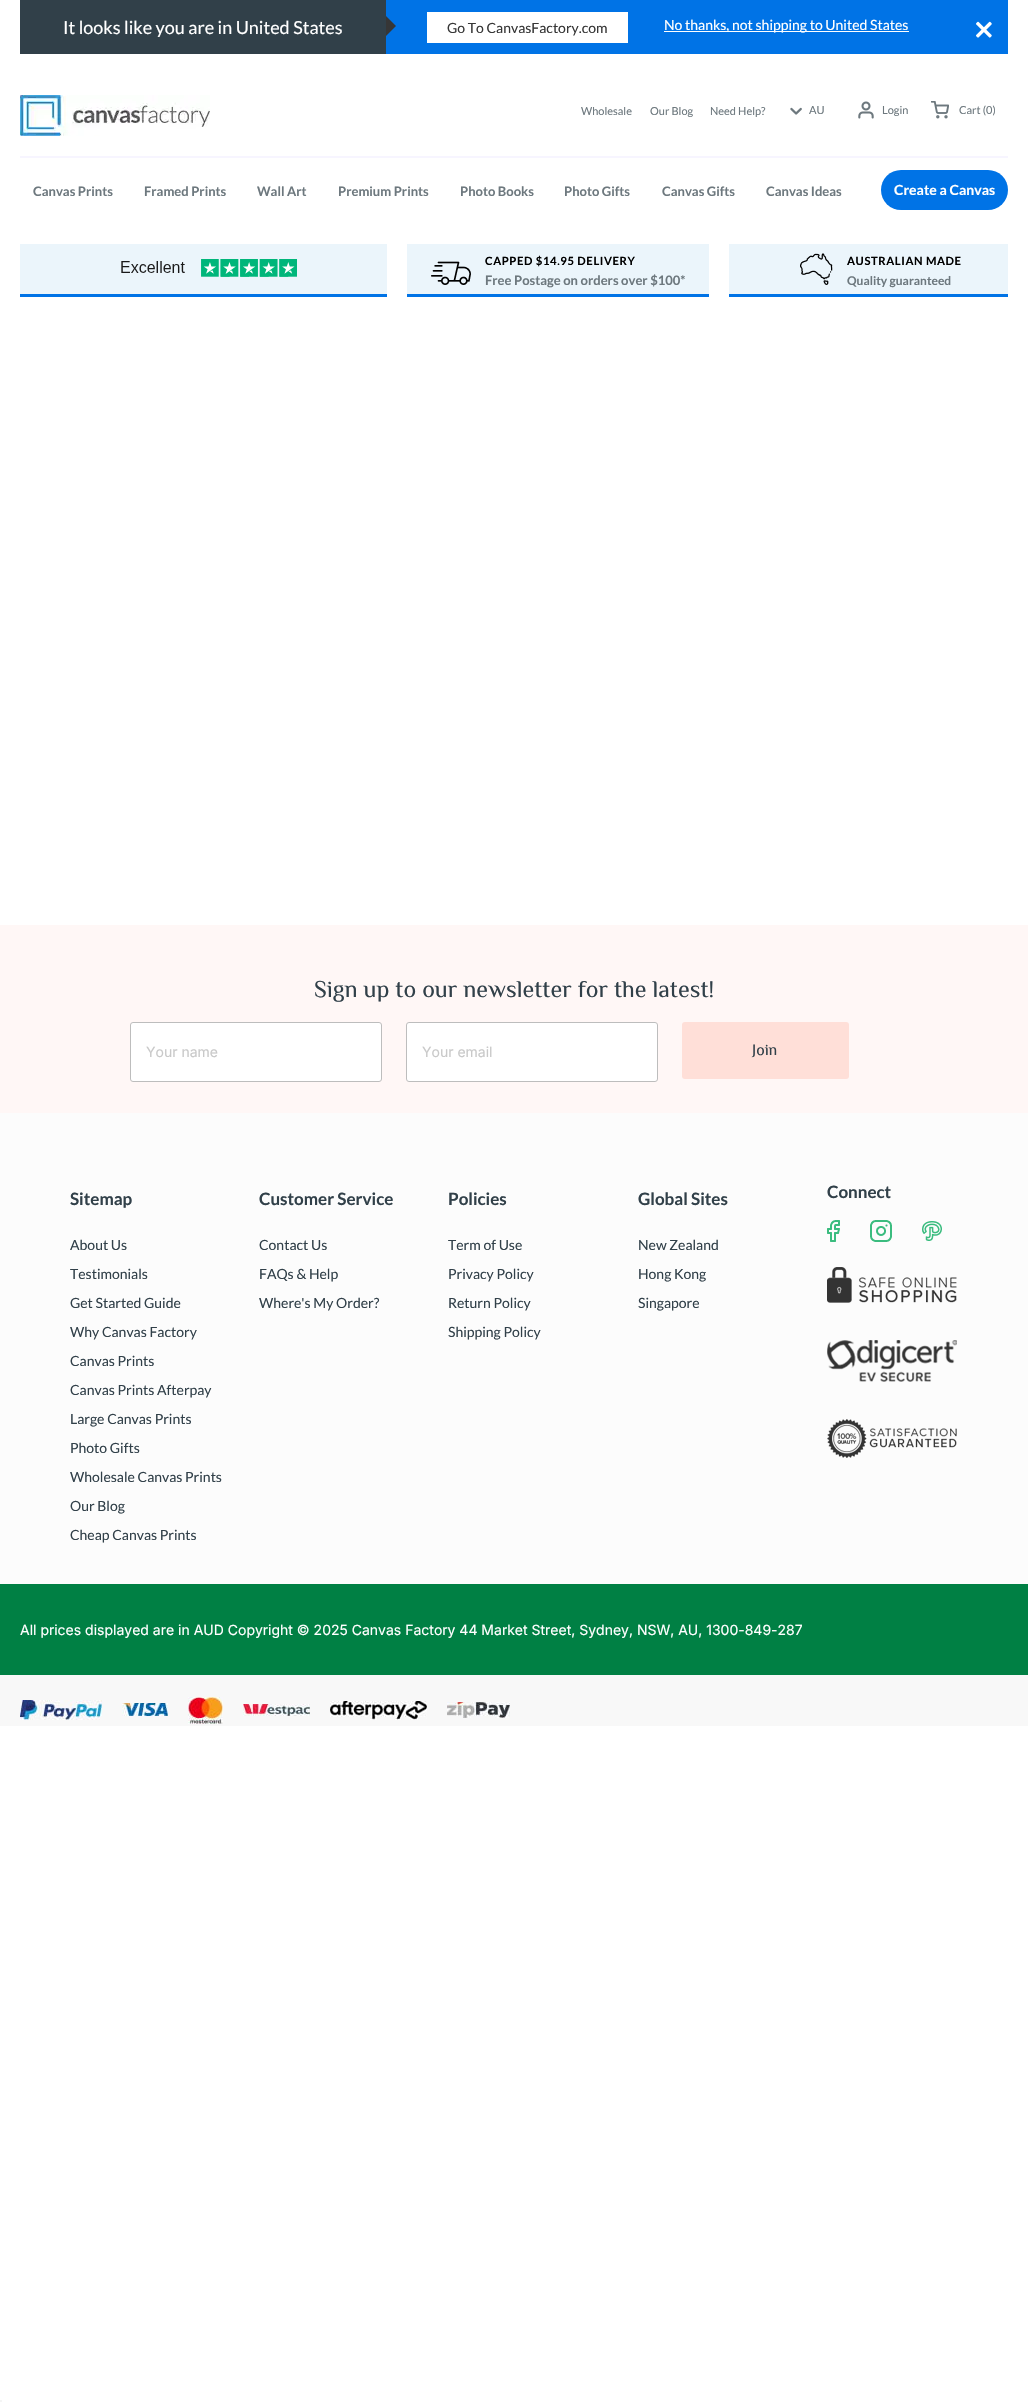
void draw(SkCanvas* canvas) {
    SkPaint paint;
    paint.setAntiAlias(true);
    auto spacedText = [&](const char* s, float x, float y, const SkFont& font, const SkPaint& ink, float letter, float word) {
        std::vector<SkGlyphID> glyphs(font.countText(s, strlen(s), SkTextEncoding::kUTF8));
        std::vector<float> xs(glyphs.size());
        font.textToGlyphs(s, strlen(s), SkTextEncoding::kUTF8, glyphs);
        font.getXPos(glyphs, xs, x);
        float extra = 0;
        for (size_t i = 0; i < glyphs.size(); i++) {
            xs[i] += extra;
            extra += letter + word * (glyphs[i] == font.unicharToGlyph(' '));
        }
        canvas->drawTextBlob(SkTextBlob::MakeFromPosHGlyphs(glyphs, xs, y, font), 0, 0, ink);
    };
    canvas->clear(0xFFFFFFFF);
    paint.setColor(0xFF314049);
    canvas->drawRect(SkRect::MakeXYWH(20, 0, 366, 54), paint);
    SkFont font1(fontMgr->matchFamilyStyle("Lato", SkFontStyle::Normal()), 18);
    font1.setSubpixel(true);
    paint.setColor(0xFFFFFFFF);
    canvas->drawString("It looks like you are in United States", 63, 34, font1, paint);
    paint.setColor(0xFF0073E6);
    canvas->drawRect(SkRect::MakeXYWH(386, 0, 622, 54), paint);
    paint.setColor(0xFF363636);
    canvas->drawPath(SkPathBuilder().moveTo(386, 36).lineTo(386, 16).lineTo(396, 26).close().detach(), paint);
    paint.setColor(0xFFFFFFFF);
    canvas->drawRect(SkRect::MakeXYWH(427, 12, 201, 31), paint);
    SkFont font2(fontMgr->matchFamilyStyle("Lato", SkFontStyle::Normal()), 14);
    font2.setSubpixel(true);
    paint.setColor(0xFF363636);
    canvas->drawString("Go To CanvasFactory.com", 447, 33, font2, paint);
    paint.setColor(0xFFFFFFFF);
    canvas->drawRect(SkRect::MakeXYWH(664, 31, 245, 1), paint);
    canvas->drawString("No thanks, not shipping to United States", 664, 30, font2, paint);
    canvas->drawImageRect(SkImages::DeferredFromEncodedData(SkData::MakeFromFileName("img1.png")), SkRect::MakeXYWH(976, 21, 16, 17), SkSamplingOptions());
    canvas->drawImageRect(SkImages::DeferredFromEncodedData(SkData::MakeFromFileName("img2.png")), SkRect::MakeXYWH(20, 95, 190, 41), SkSamplingOptions());
    SkFont font3(fontMgr->matchFamilyStyle("Lato", SkFontStyle::Normal()), 11);
    font3.setSubpixel(true);
    paint.setColor(0xFF6D787E);
    canvas->drawString("Wholesale", 581, 115, font3, paint);
    canvas->drawString("Our Blog", 650, 115, font3, paint);
    canvas->drawString("Need Help?", 710, 115, font3, paint);
    canvas->drawImageRect(SkImages::DeferredFromEncodedData(SkData::MakeFromFileName("img3.png")), SkRect::MakeXYWH(790, 107, 12, 8), SkSamplingOptions());
    canvas->drawString("AU", 809, 114, font3, paint);
    canvas->drawImageRect(SkImages::DeferredFromEncodedData(SkData::MakeFromFileName("img4.png")), SkRect::MakeXYWH(858, 101, 16, 18), SkSamplingOptions());
    canvas->drawString("Login", 882, 114, font3, paint);
    canvas->drawImageRect(SkImages::DeferredFromEncodedData(SkData::MakeFromFileName("img5.png")), SkRect::MakeXYWH(931, 101, 18, 18), SkSamplingOptions());
    canvas->drawString("Cart (0)", 959, 114, font3, paint);
    paint.setColor(0xFFF7F5FF);
    canvas->drawRect(SkRect::MakeXYWH(20, 156, 988, 2), paint);
    SkFont font4(fontMgr->matchFamilyStyle("Lato", SkFontStyle::Bold()), 13);
    font4.setSubpixel(true);
    paint.setColor(0xFF6D787E);
    canvas->drawString("Canvas Prints", 33, 196, font4, paint);
    canvas->drawString("Framed Prints", 144, 196, font4, paint);
    canvas->drawString("Wall Art", 257, 196, font4, paint);
    canvas->drawString("Premium Prints", 338, 196, font4, paint);
    canvas->drawString("Photo Books", 460, 196, font4, paint);
    canvas->drawString("Photo Gifts", 564, 196, font4, paint);
    canvas->drawString("Canvas Gifts", 662, 196, font4, paint);
    canvas->drawString("Canvas Ideas", 766, 196, font4, paint);
    paint.setColor(0xFF0073E6);
    canvas->drawRoundRect(SkRect::MakeXYWH(881, 170, 127, 40), 20, 20, paint);
    SkFont font5(fontMgr->matchFamilyStyle("Lato", SkFontStyle::Bold()), 14);
    font5.setSubpixel(true);
    paint.setColor(0xFFFFFFFF);
    canvas->drawString("Create a Canvas", 894, 195, font5, paint);
    paint.setColor(0xFFEBF5FB);
    canvas->drawRect(SkRect::MakeXYWH(20, 244, 367, 50), paint);
    paint.setColor(0xFF0073E6);
    canvas->drawRect(SkRect::MakeXYWH(20, 294, 367, 3), paint);
    canvas->drawImageRect(SkImages::DeferredFromEncodedData(SkData::MakeFromFileName("img6.png")), SkRect::MakeXYWH(121, 259, 176, 18), SkSamplingOptions());
    paint.setColor(0xFFEBF5FB);
    canvas->drawRect(SkRect::MakeXYWH(407, 244, 302, 50), paint);
    paint.setColor(0xFF0073E6);
    canvas->drawRect(SkRect::MakeXYWH(407, 294, 302, 3), paint);
    canvas->drawImageRect(SkImages::DeferredFromEncodedData(SkData::MakeFromFileName("img7.png")), SkRect::MakeXYWH(431, 261, 40, 24), SkSamplingOptions());
    SkFont font6(fontMgr->matchFamilyStyle("Lato", SkFontStyle::Bold()), 11.25f);
    font6.setSubpixel(true);
    paint.setColor(0xFF000000);
    spacedText("CAPPED $14.95 DELIVERY", 485, 265, font6, paint, 0.6f, 0);
    paint.setColor(0xFF6D787E);
    canvas->drawString("Free Postage on orders over $100*", 485, 285, font4, paint);
    paint.setColor(0xFFEBF5FB);
    canvas->drawRect(SkRect::MakeXYWH(729, 244, 279, 50), paint);
    paint.setColor(0xFF0073E6);
    canvas->drawRect(SkRect::MakeXYWH(729, 294, 279, 3), paint);
    canvas->drawImageRect(SkImages::DeferredFromEncodedData(SkData::MakeFromFileName("img8.png")), SkRect::MakeXYWH(800, 253, 33, 32), SkSamplingOptions());
    paint.setColor(0xFF000000);
    spacedText("AUSTRALIAN MADE", 847, 265, font6, paint, 0.6f, 0);
    SkFont font7(fontMgr->matchFamilyStyle("Lato", SkFontStyle::Bold()), 12);
    font7.setSubpixel(true);
    paint.setColor(0xFF6D787E);
    canvas->drawString("Quality guaranteed", 847, 285, font7, paint);
    paint.setColor(0xFFFFF7F6);
    canvas->drawRect(SkRect::MakeXYWH(0, 925, 1028, 188), paint);
    SkFont font8(fontMgr->matchFamilyStyle("Philosopher", SkFontStyle::Normal()), 24);
    font8.setSubpixel(true);
    paint.setColor(0xFF314049);
    canvas->drawString("Sign up to our newsletter for the latest!", 314, 997, font8, paint);
    paint.setColor(0xFFFFFFFF);
    canvas->drawRoundRect(SkRect::MakeXYWH(130.5f, 1022.5f, 251, 59), 2.5f, 2.5f, paint);
    paint.setStyle(SkPaint::kStroke_Style);
    paint.setStrokeWidth(1);
    paint.setColor(0xFFBDBDBD);
    canvas->drawRoundRect(SkRect::MakeXYWH(130.5f, 1022.5f, 251, 59), 2.5f, 2.5f, paint);
    SkFont font9(fontMgr->matchFamilyStyle("Inter", SkFontStyle::Normal()), 14);
    font9.setSubpixel(true);
    paint.setStyle(SkPaint::kFill_Style);
    paint.setColor(0xFFC9C9C9);
    canvas->drawString("Your name", 146, 1057, font9, paint);
    paint.setColor(0xFFFFFFFF);
    canvas->drawRoundRect(SkRect::MakeXYWH(406.5f, 1022.5f, 251, 59), 2.5f, 2.5f, paint);
    paint.setStyle(SkPaint::kStroke_Style);
    paint.setColor(0xFFBDBDBD);
    canvas->drawRoundRect(SkRect::MakeXYWH(406.5f, 1022.5f, 251, 59), 2.5f, 2.5f, paint);
    paint.setStyle(SkPaint::kFill_Style);
    paint.setColor(0xFFC9C9C9);
    canvas->drawString("Your email", 422, 1057, font9, paint);
    paint.setColor(0xFFFFDFD8);
    canvas->drawRoundRect(SkRect::MakeXYWH(682, 1022, 167, 57), 3, 3, paint);
    SkFont font10(fontMgr->matchFamilyStyle("Philosopher", SkFontStyle::Normal()), 16);
    font10.setSubpixel(true);
    paint.setColor(0xFF314049);
    canvas->drawString("Join", 752, 1055, font10, paint);
    paint.setColor(0xFFFCFCFC);
    canvas->drawRect(SkRect::MakeXYWH(0, 1113, 1028, 471), paint);
    SkFont font11(fontMgr->matchFamilyStyle("Lato", SkFontStyle::Bold()), 17);
    font11.setSubpixel(true);
    paint.setColor(0xFF314049);
    canvas->drawString("Sitemap", 70, 1205, font11, paint);
    canvas->drawString("About Us", 70, 1250, font2, paint);
    canvas->drawString("Testimonials", 70, 1279, font2, paint);
    canvas->drawString("Get Started Guide", 70, 1308, font2, paint);
    canvas->drawString("Why Canvas Factory", 70, 1337, font2, paint);
    canvas->drawString("Canvas Prints", 70, 1366, font2, paint);
    canvas->drawString("Canvas Prints Afterpay", 70, 1395, font2, paint);
    canvas->drawString("Large Canvas Prints", 70, 1424, font2, paint);
    canvas->drawString("Photo Gifts", 70, 1453, font2, paint);
    canvas->drawString("Wholesale Canvas Prints", 70, 1482, font2, paint);
    canvas->drawString("Our Blog", 70, 1511, font2, paint);
    canvas->drawString("Cheap Canvas Prints", 70, 1540, font2, paint);
    canvas->drawString("Customer Service", 259, 1205, font11, paint);
    canvas->drawString("Contact Us", 259, 1250, font2, paint);
    canvas->drawString("FAQs & Help", 259, 1279, font2, paint);
    canvas->drawString("Where's My Order?", 259, 1308, font2, paint);
    canvas->drawString("Policies", 448, 1205, font11, paint);
    canvas->drawString("Term of Use", 448, 1250, font2, paint);
    canvas->drawString("Privacy Policy", 448, 1279, font2, paint);
    canvas->drawString("Return Policy", 448, 1308, font2, paint);
    canvas->drawString("Shipping Policy", 448, 1337, font2, paint);
    canvas->drawString("Global Sites", 638, 1205, font11, paint);
    canvas->drawString("New Zealand", 638, 1250, font2, paint);
    canvas->drawString("Hong Kong", 638, 1279, font2, paint);
    canvas->drawString("Singapore", 638, 1308, font2, paint);
    canvas->drawString("Connect", 827, 1198, font11, paint);
    canvas->drawImageRect(SkImages::DeferredFromEncodedData(SkData::MakeFromFileName("img9.png")), SkRect::MakeXYWH(827, 1220, 13, 22), SkSamplingOptions());
    canvas->drawImageRect(SkImages::DeferredFromEncodedData(SkData::MakeFromFileName("img10.png")), SkRect::MakeXYWH(870, 1220, 22, 22), SkSamplingOptions());
    canvas->drawImageRect(SkImages::DeferredFromEncodedData(SkData::MakeFromFileName("img11.png")), SkRect::MakeXYWH(922, 1221, 20, 20), SkSamplingOptions());
    canvas->drawImageRect(SkImages::DeferredFromEncodedData(SkData::MakeFromFileName("img12.png")), SkRect::MakeXYWH(827, 1267, 130, 36), SkSamplingOptions());
    canvas->drawImageRect(SkImages::DeferredFromEncodedData(SkData::MakeFromFileName("img13.png")), SkRect::MakeXYWH(827, 1340, 130, 42), SkSamplingOptions());
    canvas->drawImageRect(SkImages::DeferredFromEncodedData(SkData::MakeFromFileName("img14.png")), SkRect::MakeXYWH(827, 1419, 130, 39), SkSamplingOptions());
    paint.setColor(0xFF008044);
    canvas->drawRect(SkRect::MakeXYWH(0, 1584, 1028, 91), paint);
    paint.setColor(0xFFFFFFFF);
    canvas->drawString("All prices displayed are in AUD Copyright © 2025 Canvas Factory 44 Market Street, Sydney, NSW, AU, 1300-849-287", 20, 1635, font9, paint);
    paint.setColor(0xFFF8F8F8);
    canvas->drawRect(SkRect::MakeXYWH(0, 1675, 1028, 51), paint);
    canvas->drawImageRect(SkImages::DeferredFromEncodedData(SkData::MakeFromFileName("img15.png")), SkRect::MakeXYWH(20, 1700, 82, 20), SkSamplingOptions());
    canvas->drawImageRect(SkImages::DeferredFromEncodedData(SkData::MakeFromFileName("img16.png")), SkRect::MakeXYWH(122, 1703, 46, 14), SkSamplingOptions());
    canvas->drawImageRect(SkImages::DeferredFromEncodedData(SkData::MakeFromFileName("img17.png")), SkRect::MakeXYWH(188, 1697, 35, 27), SkSamplingOptions());
    canvas->drawImageRect(SkImages::DeferredFromEncodedData(SkData::MakeFromFileName("img18.png")), SkRect::MakeXYWH(243, 1704, 67, 12), SkSamplingOptions());
    canvas->drawImageRect(SkImages::DeferredFromEncodedData(SkData::MakeFromFileName("img19.png")), SkRect::MakeXYWH(330, 1701, 97, 19), SkSamplingOptions());
    canvas->drawImageRect(SkImages::DeferredFromEncodedData(SkData::MakeFromFileName("img20.png")), SkRect::MakeXYWH(447, 1702, 63, 16), SkSamplingOptions());
    paint.setColor(0xFFF5F5F5);
    canvas->drawRect(SkRect::MakeXYWH(0, 2400, 2, 2), paint);
}
